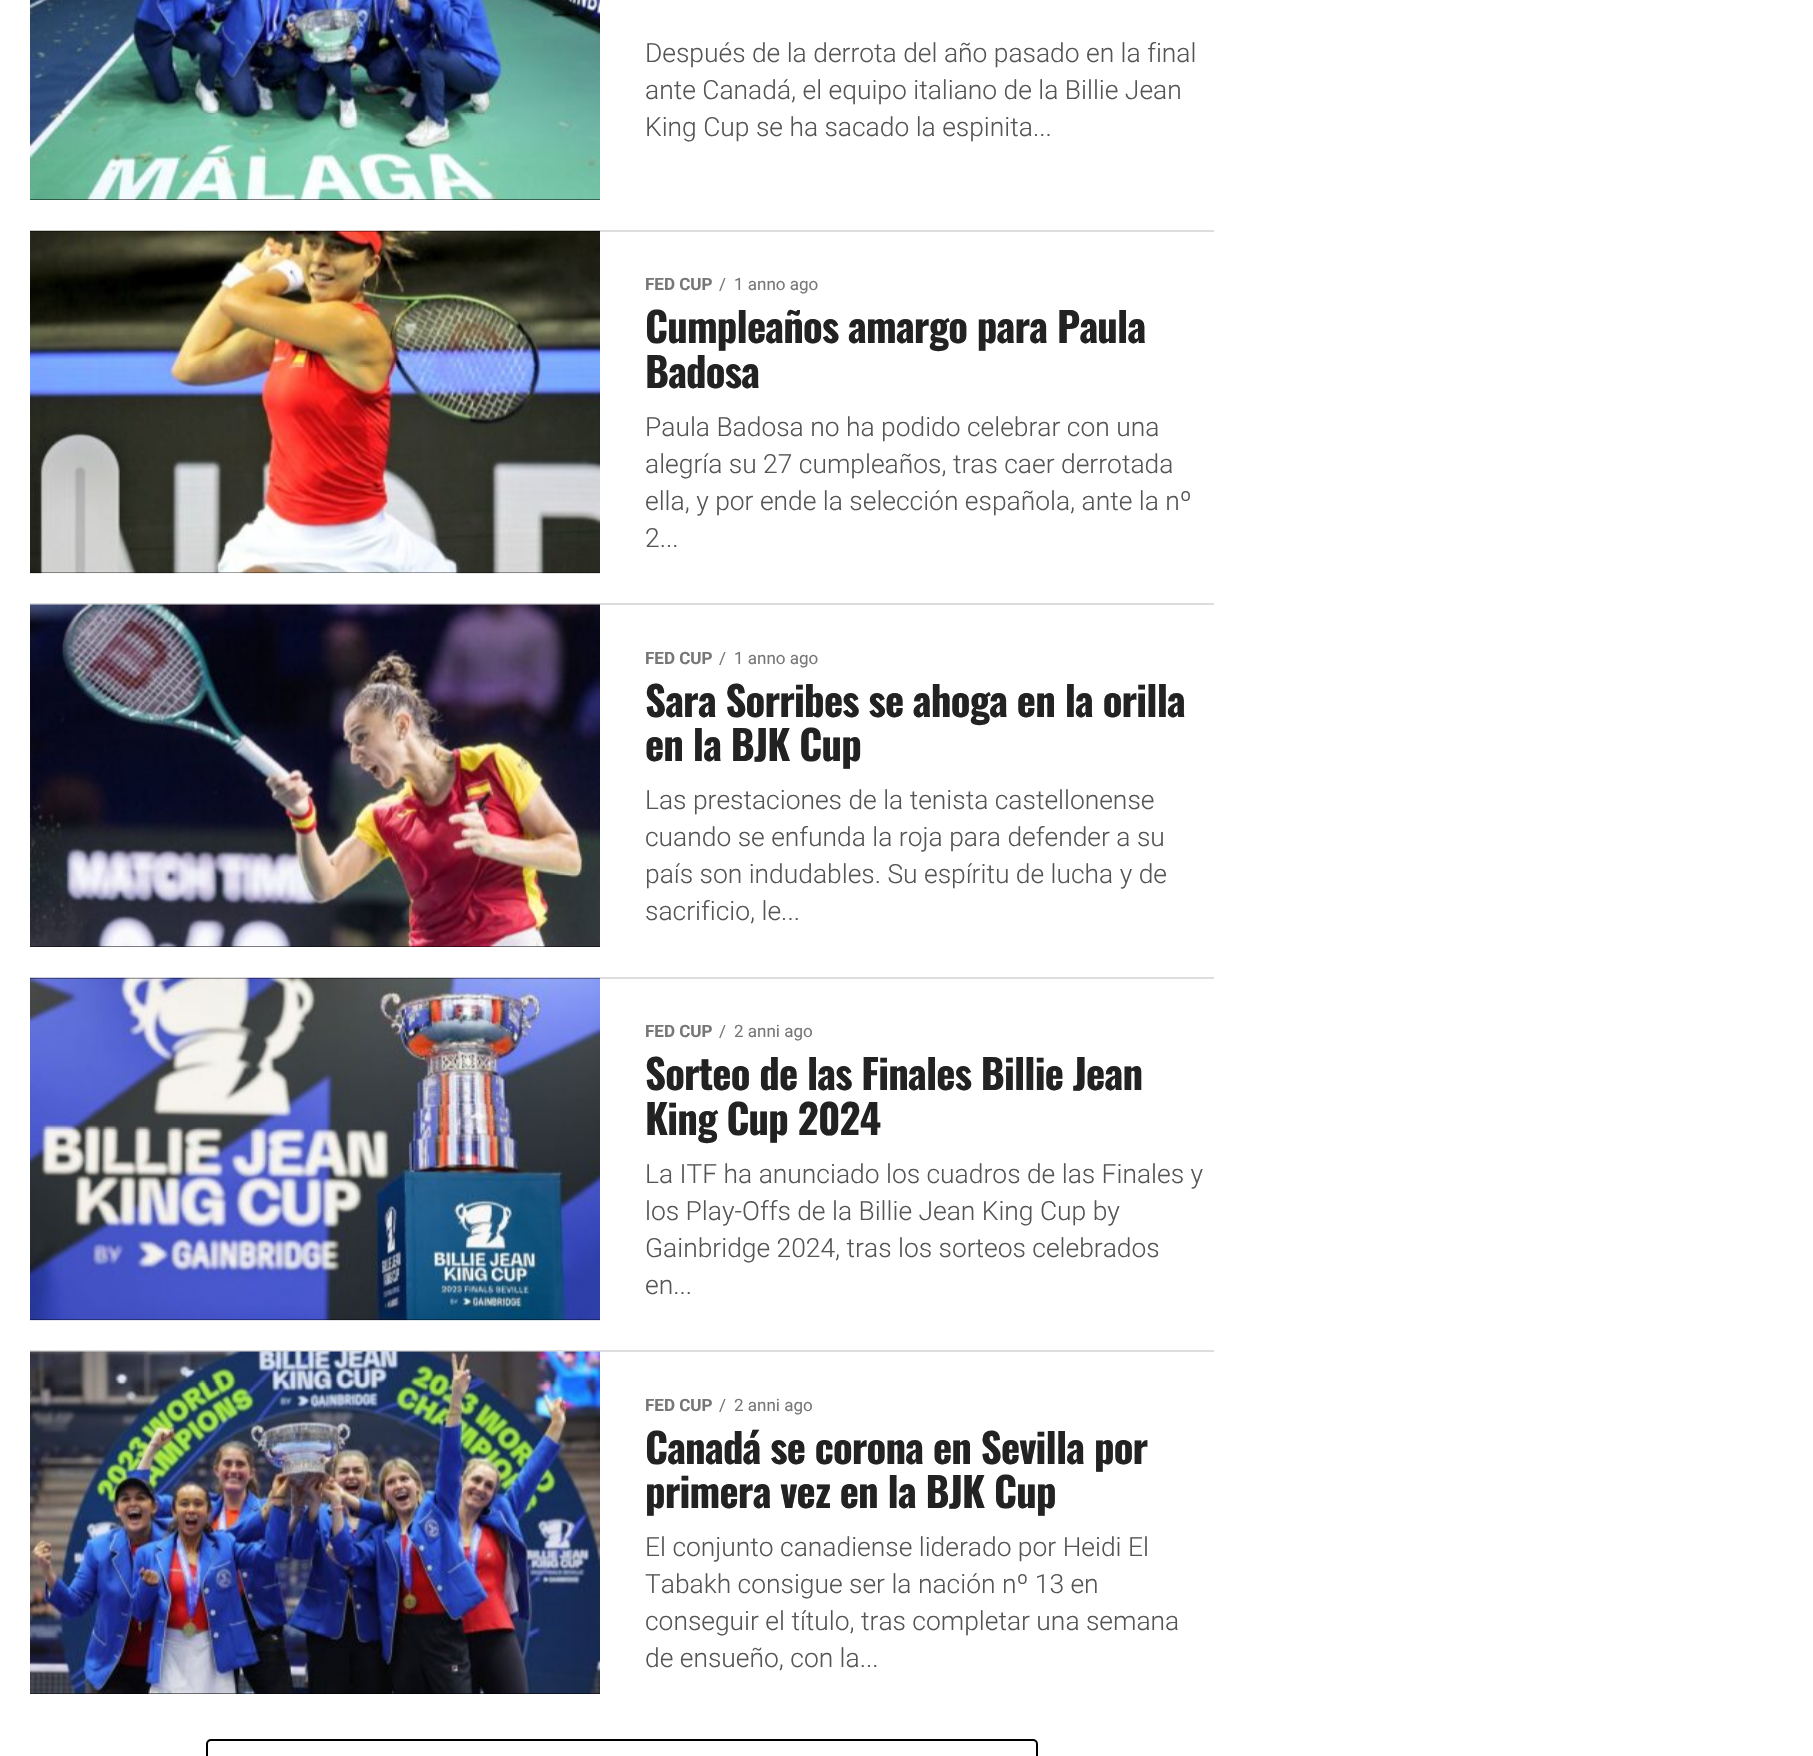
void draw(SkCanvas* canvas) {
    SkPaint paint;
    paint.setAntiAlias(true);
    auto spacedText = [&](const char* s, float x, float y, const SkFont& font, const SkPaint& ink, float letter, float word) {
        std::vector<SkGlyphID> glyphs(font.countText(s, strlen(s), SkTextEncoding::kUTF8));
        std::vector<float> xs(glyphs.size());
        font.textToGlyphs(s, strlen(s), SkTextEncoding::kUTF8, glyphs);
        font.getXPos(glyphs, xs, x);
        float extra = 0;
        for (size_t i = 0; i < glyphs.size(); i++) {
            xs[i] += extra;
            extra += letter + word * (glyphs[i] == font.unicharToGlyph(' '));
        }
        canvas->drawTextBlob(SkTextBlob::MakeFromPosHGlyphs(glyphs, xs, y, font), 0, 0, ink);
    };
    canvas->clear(0xFFFFFFFF);
    paint.setColor(0xFF000000);
    canvas->drawRect(SkRect::MakeXYWH(30, 199, 570, 1), paint);
    canvas->drawImageRect(SkImages::DeferredFromEncodedData(SkData::MakeFromFileName("img1.png")), SkRect::MakeXYWH(30, 0, 570, 200), SkSamplingOptions());
    SkFont font1(fontMgr->matchFamilyStyle("Roboto", SkFontStyle(300, SkFontStyle::kNormal_Width, SkFontStyle::kUpright_Slant)), 26.4f);
    font1.setSubpixel(true);
    paint.setColor(0xFF555555);
    canvas->drawString("Después de la derrota del año pasado en la final", 645, 62, font1, paint);
    canvas->drawString("ante Canadá, el equipo italiano de la Billie Jean", 645, 99, font1, paint);
    canvas->drawString("King Cup se ha sacado la espinita...", 645, 136, font1, paint);
    paint.setColor(0xFFDDDDDD);
    canvas->drawRect(SkRect::MakeXYWH(30, 230, 1184, 2), paint);
    paint.setColor(0xFF000000);
    canvas->drawRect(SkRect::MakeXYWH(30, 231, 570, 342), paint);
    canvas->drawImageRect(SkImages::DeferredFromEncodedData(SkData::MakeFromFileName("img2.png")), SkRect::MakeXYWH(30, 230, 570, 344), SkSamplingOptions());
    SkFont font2(fontMgr->matchFamilyStyle("Roboto", SkFontStyle::Bold()), 17);
    font2.setSubpixel(true);
    paint.setColor(0xFF777777);
    canvas->drawString("FED CUP", 645, 290, font2, paint);
    SkFont font3(fontMgr->matchFamilyStyle("Roboto", SkFontStyle::Normal()), 17);
    font3.setSubpixel(true);
    canvas->drawString("/", 719, 290, font3, paint);
    canvas->drawString("1 anno ago", 734, 290, font3, paint);
    SkFont font4(fontMgr->matchFamilyStyle("Oswald", SkFontStyle::Bold()), 40.75f);
    font4.setSubpixel(true);
    paint.setColor(0xFF222222);
    spacedText("Cumpleaños amargo para Paula", 645, 343, font4, paint, -0.8f, 0);
    spacedText("Badosa", 645, 388, font4, paint, -0.8f, 0);
    paint.setColor(0xFF555555);
    canvas->drawString("Paula Badosa no ha podido celebrar con una", 645, 436, font1, paint);
    canvas->drawString("alegría su 27 cumpleaños, tras caer derrotada", 645, 473, font1, paint);
    canvas->drawString("ella, y por ende la selección española, ante la nº", 645, 510, font1, paint);
    canvas->drawString("2...", 645, 547, font1, paint);
    paint.setColor(0xFFDDDDDD);
    canvas->drawRect(SkRect::MakeXYWH(30, 603, 1184, 2), paint);
    paint.setColor(0xFF000000);
    canvas->drawRect(SkRect::MakeXYWH(30, 946, 570, 1), paint);
    canvas->drawImageRect(SkImages::DeferredFromEncodedData(SkData::MakeFromFileName("img3.png")), SkRect::MakeXYWH(30, 604, 570, 343), SkSamplingOptions());
    paint.setColor(0xFF777777);
    canvas->drawString("FED CUP", 645, 664, font2, paint);
    canvas->drawString("/", 719, 664, font3, paint);
    canvas->drawString("1 anno ago", 734, 664, font3, paint);
    paint.setColor(0xFF222222);
    spacedText("Sara Sorribes se ahoga en la orilla", 645, 717, font4, paint, -0.8f, 0);
    spacedText("en la BJK Cup", 645, 761, font4, paint, -0.8f, 0);
    paint.setColor(0xFF555555);
    canvas->drawString("Las prestaciones de la tenista castellonense", 645, 809, font1, paint);
    canvas->drawString("cuando se enfunda la roja para defender a su", 645, 846, font1, paint);
    canvas->drawString("país son indudables. Su espíritu de lucha y de", 645, 883, font1, paint);
    canvas->drawString("sacrificio, le...", 645, 920, font1, paint);
    paint.setColor(0xFFDDDDDD);
    canvas->drawRect(SkRect::MakeXYWH(30, 977, 1184, 2), paint);
    paint.setColor(0xFF000000);
    canvas->drawRect(SkRect::MakeXYWH(30, 978, 570, 342), paint);
    canvas->drawImageRect(SkImages::DeferredFromEncodedData(SkData::MakeFromFileName("img4.png")), SkRect::MakeXYWH(30, 977, 570, 344), SkSamplingOptions());
    paint.setColor(0xFF777777);
    canvas->drawString("FED CUP", 645, 1037, font2, paint);
    canvas->drawString("/", 719, 1037, font3, paint);
    canvas->drawString("2 anni ago", 734, 1037, font3, paint);
    paint.setColor(0xFF222222);
    spacedText("Sorteo de las Finales Billie Jean", 645, 1090, font4, paint, -0.8f, 0);
    spacedText("King Cup 2024", 645, 1135, font4, paint, -0.8f, 0);
    paint.setColor(0xFF555555);
    canvas->drawString("La ITF ha anunciado los cuadros de las Finales y", 645, 1183, font1, paint);
    canvas->drawString("los Play-Offs de la Billie Jean King Cup by", 645, 1220, font1, paint);
    canvas->drawString("Gainbridge 2024, tras los sorteos celebrados", 645, 1257, font1, paint);
    canvas->drawString("en...", 645, 1294, font1, paint);
    paint.setColor(0xFFDDDDDD);
    canvas->drawRect(SkRect::MakeXYWH(30, 1350, 1184, 2), paint);
    paint.setColor(0xFF000000);
    canvas->drawRect(SkRect::MakeXYWH(30, 1693, 570, 1), paint);
    canvas->drawImageRect(SkImages::DeferredFromEncodedData(SkData::MakeFromFileName("img5.png")), SkRect::MakeXYWH(30, 1351, 570, 343), SkSamplingOptions());
    paint.setColor(0xFF777777);
    canvas->drawString("FED CUP", 645, 1411, font2, paint);
    canvas->drawString("/", 719, 1411, font3, paint);
    canvas->drawString("2 anni ago", 734, 1411, font3, paint);
    paint.setColor(0xFF222222);
    spacedText("Canadá se corona en Sevilla por", 645, 1464, font4, paint, -0.8f, 0);
    spacedText("primera vez en la BJK Cup", 645, 1508, font4, paint, -0.8f, 0);
    paint.setColor(0xFF555555);
    canvas->drawString("El conjunto canadiense liderado por Heidi El", 645, 1556, font1, paint);
    canvas->drawString("Tabakh consigue ser la nación nº 13 en", 645, 1593, font1, paint);
    canvas->drawString("conseguir el título, tras completar una semana", 645, 1630, font1, paint);
    canvas->drawString("de ensueño, con la...", 645, 1667, font1, paint);
    paint.setStyle(SkPaint::kStroke_Style);
    paint.setStrokeWidth(2);
    paint.setColor(0xFF000000);
    canvas->drawRoundRect(SkRect::MakeXYWH(207, 1740, 830, 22), 4, 4, paint);
}
